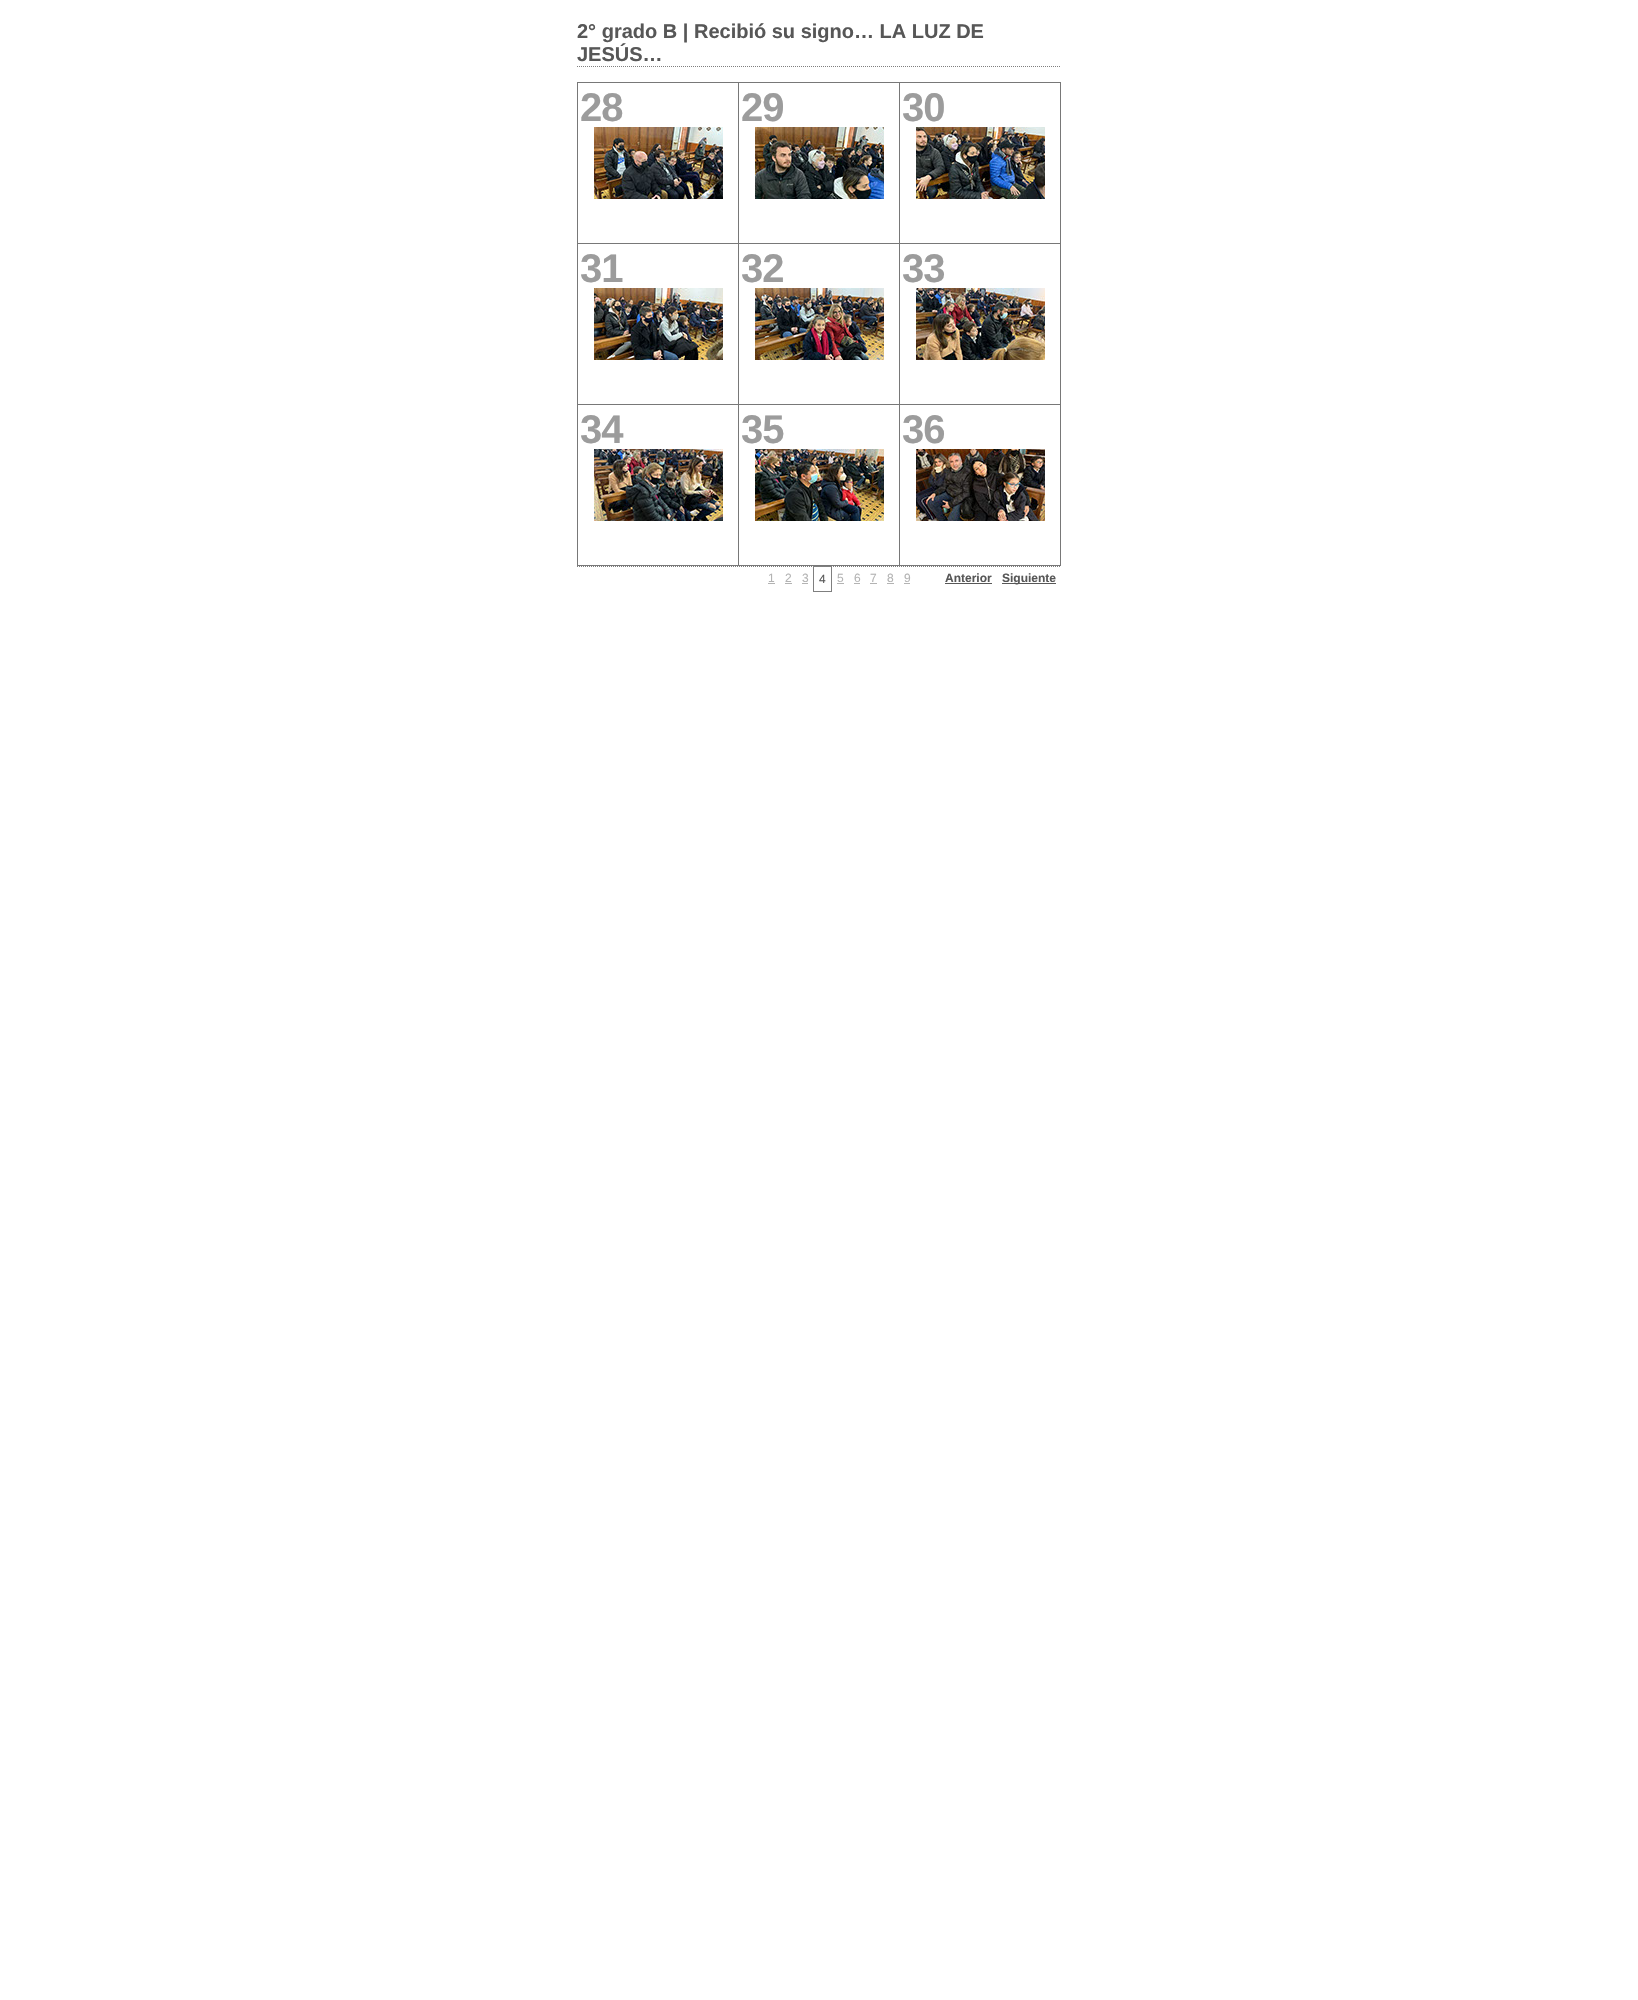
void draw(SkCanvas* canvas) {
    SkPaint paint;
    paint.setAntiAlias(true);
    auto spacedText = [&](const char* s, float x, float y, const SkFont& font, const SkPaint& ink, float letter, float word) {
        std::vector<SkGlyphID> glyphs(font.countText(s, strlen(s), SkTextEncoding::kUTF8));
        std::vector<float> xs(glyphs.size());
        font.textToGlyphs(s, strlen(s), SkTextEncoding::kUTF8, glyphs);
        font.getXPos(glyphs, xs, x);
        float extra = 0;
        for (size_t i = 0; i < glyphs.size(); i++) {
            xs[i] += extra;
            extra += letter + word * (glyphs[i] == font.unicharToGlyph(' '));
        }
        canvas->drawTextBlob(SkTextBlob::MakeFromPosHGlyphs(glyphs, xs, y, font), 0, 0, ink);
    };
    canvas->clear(0xFFFFFFFF);
    paint.setStyle(SkPaint::kStroke_Style);
    paint.setStrokeWidth(1);
    paint.setColor(0xFF7F7F7F);
    paint.setPathEffect(SkDashPathEffect::Make({{1, 1}}, 0));
    canvas->drawPath(SkPathBuilder().moveTo(577, 66.5f).lineTo(1061, 66.5f).detach(), paint);
    paint.setPathEffect(nullptr);
    SkFont font1(fontMgr->matchFamilyStyle("Liberation Sans", SkFontStyle::Bold()), 20);
    font1.setSubpixel(true);
    paint.setStyle(SkPaint::kFill_Style);
    paint.setColor(0xFF575757);
    canvas->drawString("2° grado B | Recibió su signo… LA LUZ DE", 577, 38, font1, paint);
    canvas->drawString("JESÚS…", 577, 61, font1, paint);
    paint.setColor(0xFF787878);
    canvas->drawRect(SkRect::MakeXYWH(577, 82, 484, 1), paint);
    canvas->drawRect(SkRect::MakeXYWH(577, 82, 1, 161), paint);
    SkFont font2(fontMgr->matchFamilyStyle("Liberation Sans", SkFontStyle::Bold()), 40);
    font2.setSubpixel(true);
    paint.setColor(0xFF9C9C9C);
    spacedText("28", 580, 121, font2, paint, -1, 0);
    canvas->drawImageRect(SkImages::DeferredFromEncodedData(SkData::MakeFromFileName("img1.png")), SkRect::MakeXYWH(594, 127, 129, 72), SkSamplingOptions());
    paint.setColor(0xFF787878);
    canvas->drawRect(SkRect::MakeXYWH(738, 82, 1, 161), paint);
    paint.setColor(0xFF9C9C9C);
    spacedText("29", 741, 121, font2, paint, -1, 0);
    canvas->drawImageRect(SkImages::DeferredFromEncodedData(SkData::MakeFromFileName("img2.png")), SkRect::MakeXYWH(755, 127, 129, 72), SkSamplingOptions());
    paint.setColor(0xFF787878);
    canvas->drawRect(SkRect::MakeXYWH(1060, 82, 1, 161), paint);
    canvas->drawRect(SkRect::MakeXYWH(899, 82, 1, 161), paint);
    paint.setColor(0xFF9C9C9C);
    spacedText("30", 902, 121, font2, paint, -1, 0);
    canvas->drawImageRect(SkImages::DeferredFromEncodedData(SkData::MakeFromFileName("img3.png")), SkRect::MakeXYWH(916, 127, 129, 72), SkSamplingOptions());
    paint.setColor(0xFF787878);
    canvas->drawRect(SkRect::MakeXYWH(577, 243, 484, 1), paint);
    canvas->drawRect(SkRect::MakeXYWH(577, 243, 1, 161), paint);
    paint.setColor(0xFF9C9C9C);
    spacedText("31", 580, 282, font2, paint, -1, 0);
    canvas->drawImageRect(SkImages::DeferredFromEncodedData(SkData::MakeFromFileName("img4.png")), SkRect::MakeXYWH(594, 288, 129, 72), SkSamplingOptions());
    paint.setColor(0xFF787878);
    canvas->drawRect(SkRect::MakeXYWH(738, 243, 1, 161), paint);
    paint.setColor(0xFF9C9C9C);
    spacedText("32", 741, 282, font2, paint, -1, 0);
    canvas->drawImageRect(SkImages::DeferredFromEncodedData(SkData::MakeFromFileName("img5.png")), SkRect::MakeXYWH(755, 288, 129, 72), SkSamplingOptions());
    paint.setColor(0xFF787878);
    canvas->drawRect(SkRect::MakeXYWH(1060, 243, 1, 161), paint);
    canvas->drawRect(SkRect::MakeXYWH(899, 243, 1, 161), paint);
    paint.setColor(0xFF9C9C9C);
    spacedText("33", 902, 282, font2, paint, -1, 0);
    canvas->drawImageRect(SkImages::DeferredFromEncodedData(SkData::MakeFromFileName("img6.png")), SkRect::MakeXYWH(916, 288, 129, 72), SkSamplingOptions());
    paint.setColor(0xFF787878);
    canvas->drawRect(SkRect::MakeXYWH(577, 404, 322, 1), paint);
    canvas->drawRect(SkRect::MakeXYWH(577, 565, 322, 1), paint);
    canvas->drawRect(SkRect::MakeXYWH(577, 404, 1, 162), paint);
    paint.setColor(0xFF9C9C9C);
    spacedText("34", 580, 443, font2, paint, -1, 0);
    canvas->drawImageRect(SkImages::DeferredFromEncodedData(SkData::MakeFromFileName("img7.png")), SkRect::MakeXYWH(594, 449, 129, 72), SkSamplingOptions());
    paint.setColor(0xFF787878);
    canvas->drawRect(SkRect::MakeXYWH(738, 404, 1, 162), paint);
    paint.setColor(0xFF9C9C9C);
    spacedText("35", 741, 443, font2, paint, -1, 0);
    canvas->drawImageRect(SkImages::DeferredFromEncodedData(SkData::MakeFromFileName("img8.png")), SkRect::MakeXYWH(755, 449, 129, 72), SkSamplingOptions());
    paint.setStyle(SkPaint::kStroke_Style);
    paint.setColor(0xFF787878);
    canvas->drawRect(SkRect::MakeXYWH(899.5f, 404.5f, 161, 161), paint);
    paint.setStyle(SkPaint::kFill_Style);
    paint.setColor(0xFF9C9C9C);
    spacedText("36", 902, 443, font2, paint, -1, 0);
    canvas->drawImageRect(SkImages::DeferredFromEncodedData(SkData::MakeFromFileName("img9.png")), SkRect::MakeXYWH(916, 449, 129, 72), SkSamplingOptions());
    paint.setStyle(SkPaint::kStroke_Style);
    paint.setColor(0xFF7F7F7F);
    paint.setPathEffect(SkDashPathEffect::Make({{1, 1}}, 0));
    canvas->drawPath(SkPathBuilder().moveTo(577, 566.5f).lineTo(1061, 566.5f).detach(), paint);
    paint.setPathEffect(nullptr);
    SkFont font3(fontMgr->matchFamilyStyle("Liberation Sans", SkFontStyle::Normal()), 12);
    font3.setSubpixel(true);
    paint.setStyle(SkPaint::kFill_Style);
    paint.setColor(0xFFB3B3B3);
    canvas->drawString("1", 768, 582, font3, paint);
    canvas->drawRect(SkRect::MakeXYWH(768, 583, 7, 1), paint);
    canvas->drawString("2", 785, 582, font3, paint);
    canvas->drawRect(SkRect::MakeXYWH(785, 583, 7, 1), paint);
    canvas->drawString("3", 802, 582, font3, paint);
    canvas->drawRect(SkRect::MakeXYWH(802, 583, 6, 1), paint);
    paint.setStyle(SkPaint::kStroke_Style);
    paint.setColor(0xFF7F7F7F);
    canvas->drawRect(SkRect::MakeXYWH(813.5f, 566.5f, 18, 25), paint);
    paint.setStyle(SkPaint::kFill_Style);
    paint.setColor(0xFF575757);
    canvas->drawString("4", 819, 583, font3, paint);
    paint.setColor(0xFFB3B3B3);
    canvas->drawString("5", 837, 582, font3, paint);
    canvas->drawRect(SkRect::MakeXYWH(837, 583, 7, 1), paint);
    canvas->drawString("6", 854, 582, font3, paint);
    canvas->drawRect(SkRect::MakeXYWH(854, 583, 6, 1), paint);
    canvas->drawString("7", 870, 582, font3, paint);
    canvas->drawRect(SkRect::MakeXYWH(870, 583, 7, 1), paint);
    canvas->drawString("8", 887, 582, font3, paint);
    canvas->drawRect(SkRect::MakeXYWH(887, 583, 7, 1), paint);
    canvas->drawString("9", 904, 582, font3, paint);
    canvas->drawRect(SkRect::MakeXYWH(904, 583, 6, 1), paint);
    SkFont font4(fontMgr->matchFamilyStyle("Liberation Sans", SkFontStyle::Bold()), 12);
    font4.setSubpixel(true);
    paint.setColor(0xFF575757);
    canvas->drawString("Anterior", 945, 582, font4, paint);
    canvas->drawRect(SkRect::MakeXYWH(945, 583, 47, 1), paint);
    canvas->drawRect(SkRect::MakeXYWH(1002, 583, 54, 1), paint);
    canvas->drawString("Siguiente", 1002, 582, font4, paint);
}
